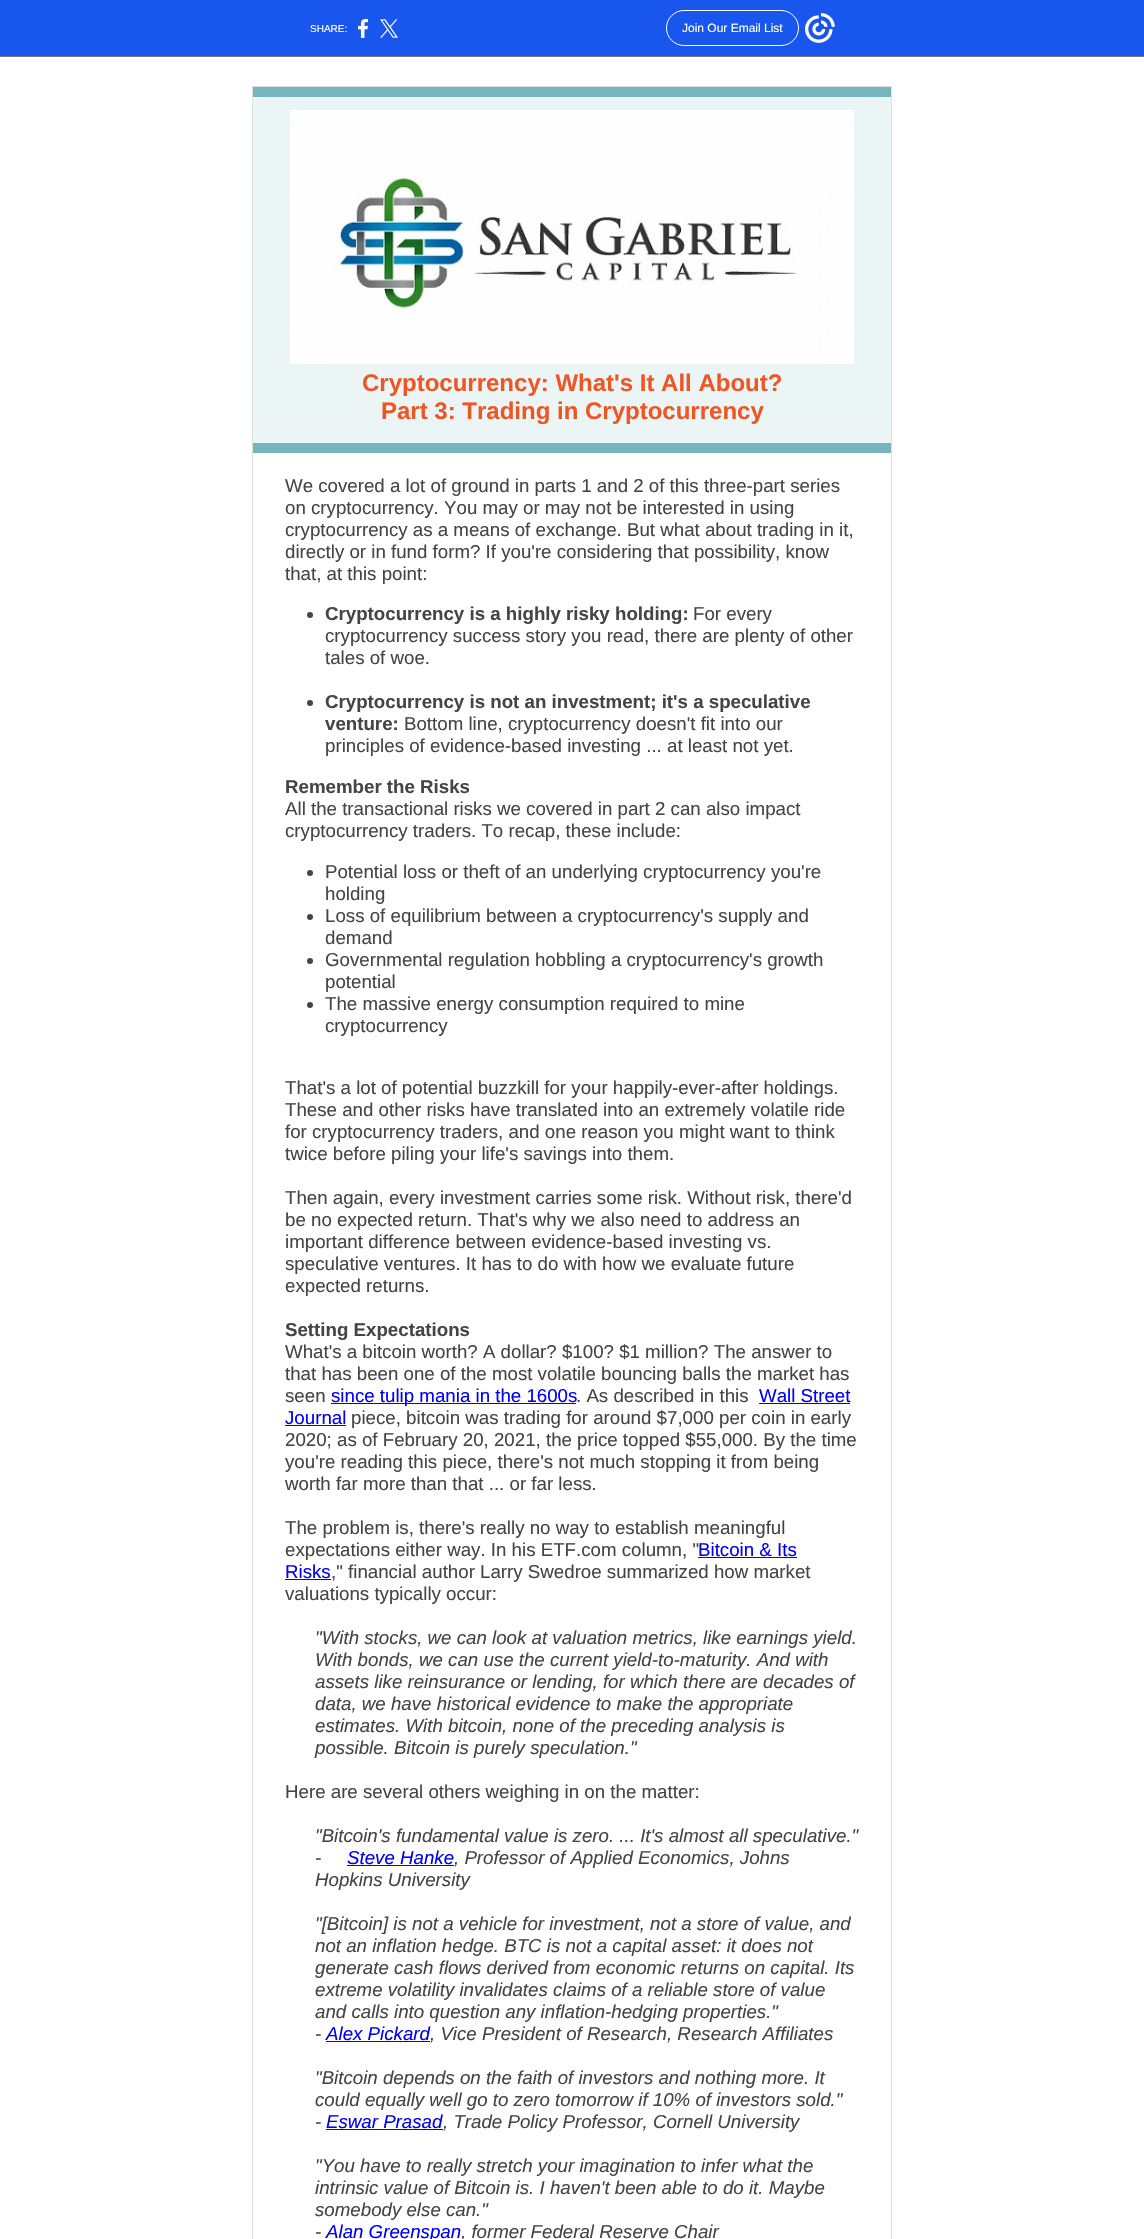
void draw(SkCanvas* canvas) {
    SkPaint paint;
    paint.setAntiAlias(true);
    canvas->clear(0xFFFFFFFF);
    paint.setColor(0xFF1856ED);
    canvas->drawRect(SkRect::MakeXYWH(0, 0, 1144, 56), paint);
    paint.setColor(0xFF7A7A7A);
    canvas->drawRect(SkRect::MakeXYWH(0, 56, 1144, 1), paint);
    SkFont font1(fontMgr->matchFamilyStyle("Liberation Sans", SkFontStyle::Normal()), 10);
    font1.setSubpixel(true);
    paint.setColor(0xFFFFFFFF);
    canvas->drawString("SHARE:", 310, 32, font1, paint);
    canvas->drawImageRect(SkImages::DeferredFromEncodedData(SkData::MakeFromFileName("img1.png")), SkRect::MakeXYWH(358, 19, 10, 19), SkSamplingOptions());
    canvas->drawImageRect(SkImages::DeferredFromEncodedData(SkData::MakeFromFileName("img2.png")), SkRect::MakeXYWH(380, 19, 18, 19), SkSamplingOptions());
    paint.setStyle(SkPaint::kStroke_Style);
    paint.setStrokeWidth(1);
    canvas->drawRoundRect(SkRect::MakeXYWH(666.5f, 10.5f, 132, 35), 17.5f, 17.5f, paint);
    SkFont font2(fontMgr->matchFamilyStyle("Liberation Sans", SkFontStyle::Normal()), 12);
    font2.setSubpixel(true);
    paint.setStyle(SkPaint::kFill_Style);
    canvas->drawString("Join Our Email List", 682, 32, font2, paint);
    canvas->drawImageRect(SkImages::DeferredFromEncodedData(SkData::MakeFromFileName("img3.png")), SkRect::MakeXYWH(805, 13, 30, 30), SkSamplingOptions());
    paint.setColor(0xFFDFDFDF);
    canvas->drawRect(SkRect::MakeXYWH(252, 86, 640, 2153), paint);
    paint.setColor(0xFFFFFFFF);
    canvas->drawRect(SkRect::MakeXYWH(253, 453, 638, 1786), paint);
    paint.setColor(0xFF76B5BE);
    canvas->drawRect(SkRect::MakeXYWH(253, 87, 638, 10), paint);
    paint.setColor(0xFFEBF5F6);
    canvas->drawRect(SkRect::MakeXYWH(253, 97, 638, 346), paint);
    canvas->drawImageRect(SkImages::DeferredFromEncodedData(SkData::MakeFromFileName("img4.png")), SkRect::MakeXYWH(290, 110, 564, 254), SkSamplingOptions());
    SkFont font3(fontMgr->matchFamilyStyle("Liberation Sans", SkFontStyle::Bold()), 24);
    font3.setSubpixel(true);
    paint.setColor(0xFFEE5624);
    canvas->drawString("Cryptocurrency: What's It All About?", 362, 391, font3, paint);
    canvas->drawString("Part 3: Trading in Cryptocurrency", 381, 419, font3, paint);
    paint.setColor(0xFF76B5BE);
    canvas->drawRect(SkRect::MakeXYWH(253, 443, 638, 10), paint);
    SkFont font4(fontMgr->matchFamilyStyle("Liberation Sans", SkFontStyle::Normal()), 18.7f);
    font4.setSubpixel(true);
    paint.setColor(0xFF454545);
    canvas->drawString("We covered a lot of ground in parts 1 and 2 of this three-part series", 285, 492, font4, paint);
    canvas->drawString("on cryptocurrency. You may or may not be interested in using", 285, 514, font4, paint);
    canvas->drawString("cryptocurrency as a means of exchange. But what about trading in it,", 285, 536, font4, paint);
    canvas->drawString("directly or in fund form? If you're considering that possibility, know", 285, 558, font4, paint);
    canvas->drawString("that, at this point:", 285, 580, font4, paint);
    canvas->drawCircle(310, 615, 3, paint);
    SkFont font5(fontMgr->matchFamilyStyle("Liberation Sans", SkFontStyle::Bold()), 18.7f);
    font5.setSubpixel(true);
    canvas->drawString("Cryptocurrency is a highly risky holding:", 325, 620, font5, paint);
    canvas->drawString("For every", 693, 620, font4, paint);
    canvas->drawString("cryptocurrency success story you read, there are plenty of other", 325, 642, font4, paint);
    canvas->drawString("tales of woe.", 325, 664, font4, paint);
    canvas->drawCircle(310, 703, 3, paint);
    canvas->drawString("Cryptocurrency is not an investment; it's a speculative", 325, 708, font5, paint);
    canvas->drawString("venture:", 325, 730, font5, paint);
    canvas->drawString("Bottom line, cryptocurrency doesn't fit into our", 404, 730, font4, paint);
    canvas->drawString("principles of evidence-based investing ... at least not yet.", 325, 752, font4, paint);
    canvas->drawString("Remember the Risks", 285, 793, font5, paint);
    canvas->drawString("All the transactional risks we covered in part 2 can also impact", 285, 815, font4, paint);
    canvas->drawString("cryptocurrency traders. To recap, these include:", 285, 837, font4, paint);
    canvas->drawCircle(310, 873, 3, paint);
    canvas->drawString("Potential loss or theft of an underlying cryptocurrency you're", 325, 878, font4, paint);
    canvas->drawString("holding", 325, 900, font4, paint);
    canvas->drawCircle(310, 917, 3, paint);
    canvas->drawString("Loss of equilibrium between a cryptocurrency's supply and", 325, 922, font4, paint);
    canvas->drawString("demand", 325, 944, font4, paint);
    canvas->drawCircle(310, 961, 3, paint);
    canvas->drawString("Governmental regulation hobbling a cryptocurrency's growth", 325, 966, font4, paint);
    canvas->drawString("potential", 325, 988, font4, paint);
    canvas->drawCircle(310, 1005, 3, paint);
    canvas->drawString("The massive energy consumption required to mine", 325, 1010, font4, paint);
    canvas->drawString("cryptocurrency", 325, 1032, font4, paint);
    canvas->drawString("That's a lot of potential buzzkill for your happily-ever-after holdings.", 285, 1094, font4, paint);
    canvas->drawString("These and other risks have translated into an extremely volatile ride", 285, 1116, font4, paint);
    canvas->drawString("for cryptocurrency traders, and one reason you might want to think", 285, 1138, font4, paint);
    canvas->drawString("twice before piling your life's savings into them.", 285, 1160, font4, paint);
    canvas->drawString("Then again, every investment carries some risk. Without risk, there'd", 285, 1204, font4, paint);
    canvas->drawString("be no expected return. That's why we also need to address an", 285, 1226, font4, paint);
    canvas->drawString("important difference between evidence-based investing vs.", 285, 1248, font4, paint);
    canvas->drawString("speculative ventures. It has to do with how we evaluate future", 285, 1270, font4, paint);
    canvas->drawString("expected returns.", 285, 1292, font4, paint);
    canvas->drawString("Setting Expectations", 285, 1336, font5, paint);
    canvas->drawString("What's a bitcoin worth? A dollar? $100? $1 million? The answer to", 285, 1358, font4, paint);
    canvas->drawString("that has been one of the most volatile bouncing balls the market has", 285, 1380, font4, paint);
    canvas->drawString("seen", 285, 1402, font4, paint);
    paint.setColor(0xFF0000FF);
    canvas->drawRect(SkRect::MakeXYWH(331, 1403, 245, 1), paint);
    canvas->drawString("since tulip mania in the 1600s", 331, 1402, font4, paint);
    paint.setColor(0xFF454545);
    canvas->drawString(". As described in this", 576, 1402, font4, paint);
    paint.setColor(0xFF0000FF);
    canvas->drawString("Wall Street", 759, 1402, font4, paint);
    canvas->drawRect(SkRect::MakeXYWH(759, 1403, 91, 1), paint);
    canvas->drawString("Journal", 285, 1424, font4, paint);
    canvas->drawRect(SkRect::MakeXYWH(285, 1425, 61, 1), paint);
    paint.setColor(0xFF454545);
    canvas->drawString("piece, bitcoin was trading for around $7,000 per coin in early", 351, 1424, font4, paint);
    canvas->drawString("2020; as of February 20, 2021, the price topped $55,000. By the time", 285, 1446, font4, paint);
    canvas->drawString("you're reading this piece, there's not much stopping it from being", 285, 1468, font4, paint);
    canvas->drawString("worth far more than that ... or far less.", 285, 1490, font4, paint);
    canvas->drawString("The problem is, there's really no way to establish meaningful", 285, 1534, font4, paint);
    canvas->drawString("expectations either way. In his ETF.com column, \"", 285, 1556, font4, paint);
    paint.setColor(0xFF0000FF);
    canvas->drawString("Bitcoin & Its", 698, 1556, font4, paint);
    canvas->drawRect(SkRect::MakeXYWH(698, 1557, 99, 1), paint);
    canvas->drawString("Risks", 285, 1578, font4, paint);
    canvas->drawRect(SkRect::MakeXYWH(285, 1579, 46, 1), paint);
    paint.setColor(0xFF454545);
    canvas->drawString(",\" financial author Larry Swedroe summarized how market", 331, 1578, font4, paint);
    canvas->drawString("valuations typically occur:", 285, 1600, font4, paint);
    SkFont font6(fontMgr->matchFamilyStyle("Liberation Sans", SkFontStyle::Italic()), 18.7f);
    font6.setSubpixel(true);
    canvas->drawString("\"With stocks, we can look at valuation metrics, like earnings yield.", 315, 1644, font6, paint);
    canvas->drawString("With bonds, we can use the current yield-to-maturity. And with", 315, 1666, font6, paint);
    canvas->drawString("assets like reinsurance or lending, for which there are decades of", 315, 1688, font6, paint);
    canvas->drawString("data, we have historical evidence to make the appropriate", 315, 1710, font6, paint);
    canvas->drawString("estimates. With bitcoin, none of the preceding analysis is", 315, 1732, font6, paint);
    canvas->drawString("possible. Bitcoin is purely speculation.\"", 315, 1754, font6, paint);
    canvas->drawString("Here are several others weighing in on the matter:", 285, 1798, font4, paint);
    canvas->drawString("\"Bitcoin's fundamental value is zero. ... It's almost all speculative.\"", 315, 1842, font6, paint);
    canvas->drawString("-", 315, 1864, font6, paint);
    paint.setColor(0xFF0000FF);
    canvas->drawString("Steve Hanke", 347, 1864, font6, paint);
    paint.setColor(0xFF454545);
    canvas->drawString(", Professor of Applied Economics, Johns", 454, 1864, font6, paint);
    paint.setColor(0xFF0000FF);
    canvas->drawRect(SkRect::MakeXYWH(347, 1865, 107, 1), paint);
    paint.setColor(0xFF454545);
    canvas->drawString("Hopkins University", 315, 1886, font6, paint);
    canvas->drawString("\"[Bitcoin] is not a vehicle for investment, not a store of value, and", 315, 1930, font6, paint);
    canvas->drawString("not an inflation hedge. BTC is not a capital asset: it does not", 315, 1952, font6, paint);
    canvas->drawString("generate cash flows derived from economic returns on capital. Its", 315, 1974, font6, paint);
    canvas->drawString("extreme volatility invalidates claims of a reliable store of value", 315, 1996, font6, paint);
    canvas->drawString("and calls into question any inflation-hedging properties.\"", 315, 2018, font6, paint);
    canvas->drawString("-", 315, 2040, font6, paint);
    paint.setColor(0xFF0000FF);
    canvas->drawString("Alex Pickard", 326, 2040, font6, paint);
    paint.setColor(0xFF454545);
    canvas->drawString(", Vice President of Research, Research Affiliates", 430, 2040, font6, paint);
    paint.setColor(0xFF0000FF);
    canvas->drawRect(SkRect::MakeXYWH(326, 2041, 104, 1), paint);
    paint.setColor(0xFF454545);
    canvas->drawString("\"Bitcoin depends on the faith of investors and nothing more. It", 315, 2084, font6, paint);
    canvas->drawString("could equally well go to zero tomorrow if 10% of investors sold.\"", 315, 2106, font6, paint);
    canvas->drawString("-", 315, 2128, font6, paint);
    paint.setColor(0xFF0000FF);
    canvas->drawString("Eswar Prasad", 326, 2128, font6, paint);
    canvas->drawRect(SkRect::MakeXYWH(326, 2129, 117, 1), paint);
    paint.setColor(0xFF454545);
    canvas->drawString(", Trade Policy Professor, Cornell University", 443, 2128, font6, paint);
    canvas->drawString("\"You have to really stretch your imagination to infer what the", 315, 2172, font6, paint);
    canvas->drawString("intrinsic value of Bitcoin is. I haven't been able to do it. Maybe", 315, 2194, font6, paint);
    canvas->drawString("somebody else can.\"", 315, 2216, font6, paint);
    canvas->drawString("-", 315, 2238, font6, paint);
    paint.setColor(0xFF0000FF);
    canvas->drawString("Alan Greenspan", 326, 2238, font6, paint);
    paint.setColor(0xFF454545);
    canvas->drawString(", former Federal Reserve Chair", 461, 2238, font6, paint);
}
